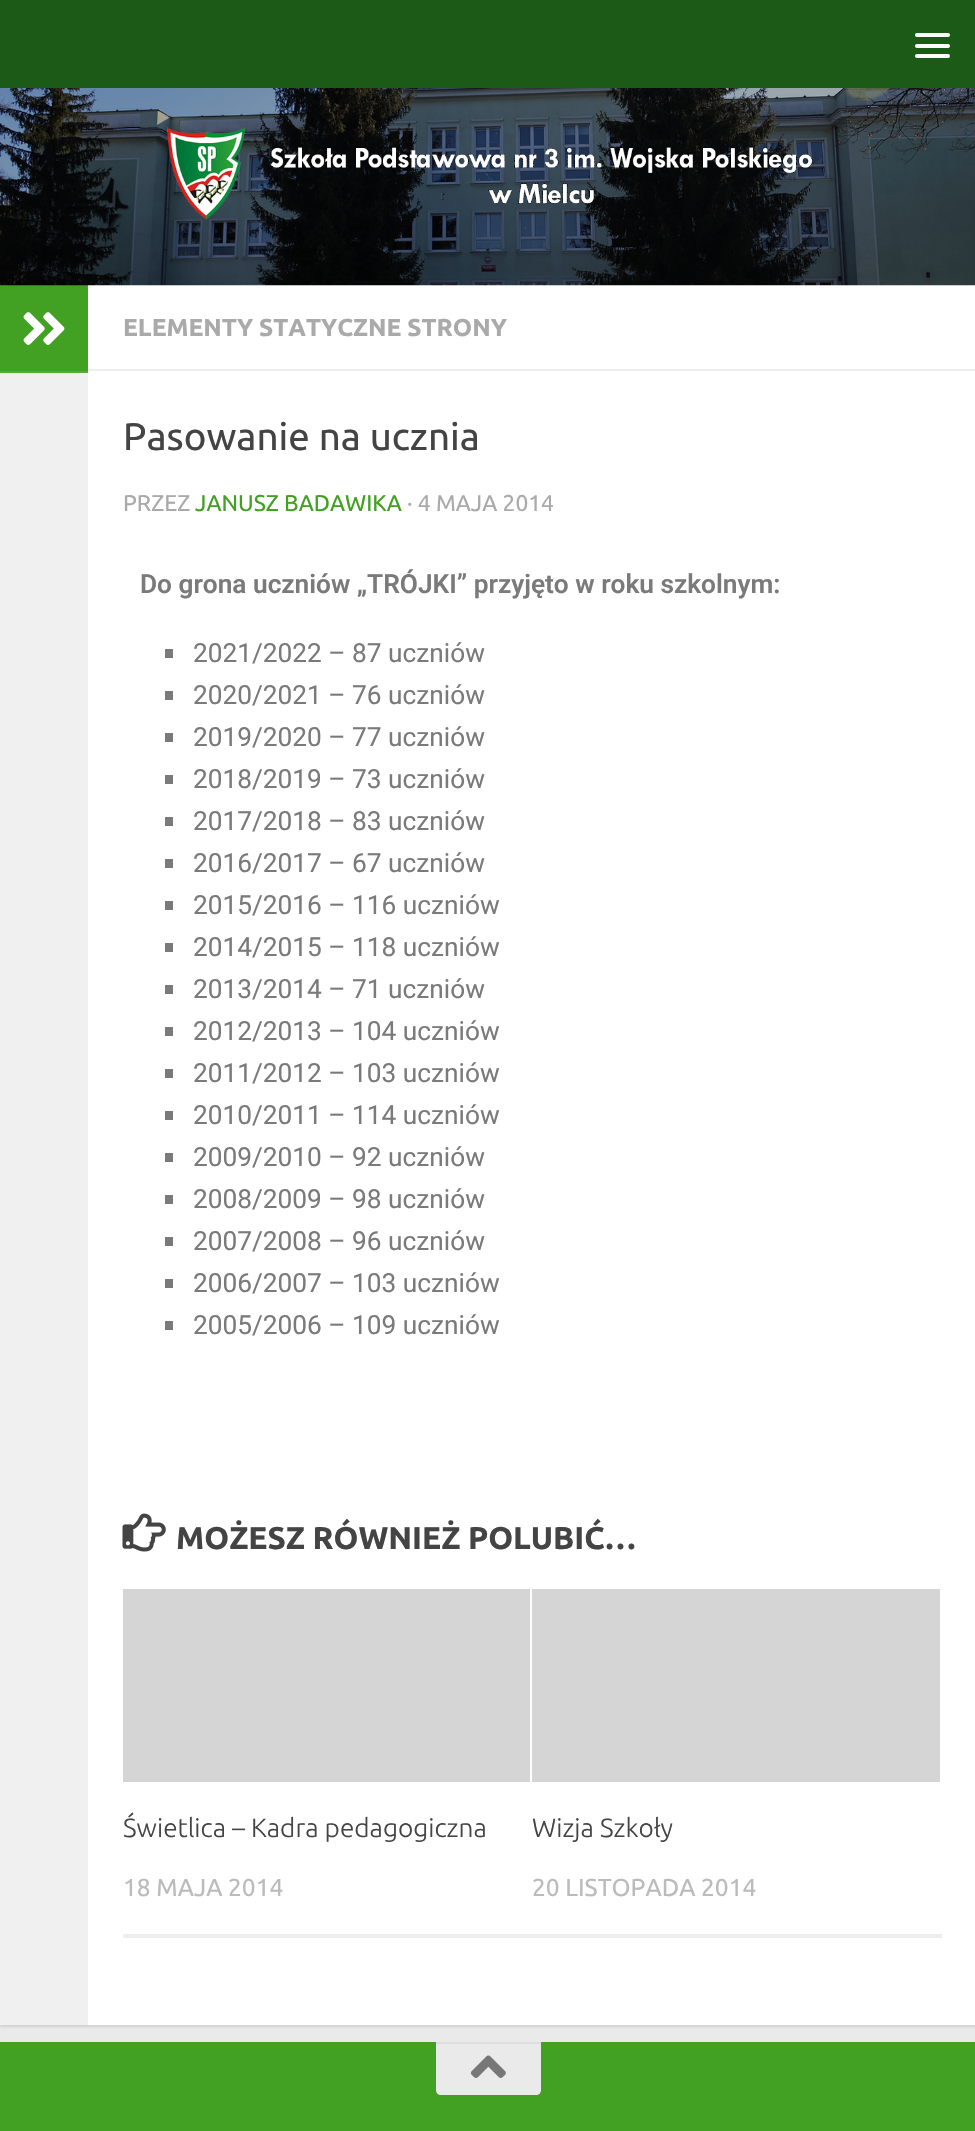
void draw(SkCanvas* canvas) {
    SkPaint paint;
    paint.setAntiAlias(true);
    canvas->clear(0xFFEAEAEA);
    paint.setColor(0xFF1C5B17);
    canvas->drawRect(SkRect::MakeXYWH(0, 0, 975, 88), paint);
    paint.setColor(0xFFFFFFFF);
    canvas->drawRoundRect(SkRect::MakeXYWH(915, 33, 35, 4), 2, 2, paint);
    canvas->drawRoundRect(SkRect::MakeXYWH(915, 44, 35, 4), 2, 2, paint);
    canvas->drawRoundRect(SkRect::MakeXYWH(915, 54, 35, 4), 2, 2, paint);
    paint.setColor(0x1A000000);
    paint.setMaskFilter(SkMaskFilter::MakeBlur(kNormal_SkBlurStyle, 1));
    canvas->drawRect(SkRect::MakeXYWH(0, 287, 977, 1740), paint);
    paint.setMaskFilter(nullptr);
    paint.setColor(0xFFFFFFFF);
    canvas->drawRect(SkRect::MakeXYWH(88, 285, 887, 1740), paint);
    paint.setColor(0xFF42A023);
    canvas->drawRect(SkRect::MakeXYWH(0, 285, 88, 86), paint);
    canvas->drawImageRect(SkImages::DeferredFromEncodedData(SkData::MakeFromFileName("img1.png")), SkRect::MakeXYWH(0, 88, 975, 198), SkSamplingOptions());
    paint.setColor(0xFFF0F0F0);
    canvas->drawRect(SkRect::MakeXYWH(0, 373, 88, 1652), paint);
    paint.setColor(0xFF55AA39);
    canvas->drawRect(SkRect::MakeXYWH(0, 371, 88, 2), paint);
    canvas->drawImageRect(SkImages::DeferredFromEncodedData(SkData::MakeFromFileName("img2.png")), SkRect::MakeXYWH(23, 312, 42, 33), SkSamplingOptions());
    paint.setColor(0xFFEEEEEE);
    canvas->drawRect(SkRect::MakeXYWH(88, 369, 887, 2), paint);
    SkFont font1(fontMgr->matchFamilyStyle("Ubuntu", SkFontStyle::Bold()), 24.5f);
    font1.setSubpixel(true);
    paint.setColor(0xFFAAAAAA);
    canvas->drawString("ELEMENTY STATYCZNE STRONY", 123, 336, font1, paint);
    SkFont font2(fontMgr->matchFamilyStyle("Ubuntu", SkFontStyle::Normal()), 38.5f);
    font2.setSubpixel(true);
    paint.setColor(0xFF444444);
    canvas->drawString("Pasowanie na ucznia", 123, 450, font2, paint);
    SkFont font3(fontMgr->matchFamilyStyle("Ubuntu", SkFontStyle::Normal()), 22.75f);
    font3.setSubpixel(true);
    paint.setColor(0xFFAAAAAA);
    canvas->drawString("PRZEZ", 123, 511, font3, paint);
    paint.setColor(0xFF42A023);
    canvas->drawString("JANUSZ BADAWIKA", 195, 511, font3, paint);
    paint.setColor(0xFFAAAAAA);
    canvas->drawString("· 4 MAJA 2014", 407, 511, font3, paint);
    SkFont font4(fontMgr->matchFamilyStyle("Roboto", SkFontStyle(600, SkFontStyle::kNormal_Width, SkFontStyle::kUpright_Slant)), 26.25f);
    font4.setSubpixel(true);
    paint.setColor(0xFF7A7A7A);
    canvas->drawString("Do grona uczniów „TRÓJKI” przyjęto w roku szkolnym:", 140, 593, font4, paint);
    canvas->drawRect(SkRect::MakeXYWH(165, 649, 8, 9), paint);
    SkFont font5(fontMgr->matchFamilyStyle("Roboto", SkFontStyle::Normal()), 26.25f);
    font5.setSubpixel(true);
    canvas->drawString("2021/2022 – 87 uczniów", 193, 662, font5, paint);
    canvas->drawRect(SkRect::MakeXYWH(165, 691, 8, 9), paint);
    canvas->drawString("2020/2021 – 76 uczniów", 193, 704, font5, paint);
    canvas->drawRect(SkRect::MakeXYWH(165, 733, 8, 9), paint);
    canvas->drawString("2019/2020 – 77 uczniów", 193, 746, font5, paint);
    canvas->drawRect(SkRect::MakeXYWH(165, 775, 8, 9), paint);
    canvas->drawString("2018/2019 – 73 uczniów", 193, 788, font5, paint);
    canvas->drawRect(SkRect::MakeXYWH(165, 817, 8, 9), paint);
    canvas->drawString("2017/2018 – 83 uczniów", 193, 830, font5, paint);
    canvas->drawRect(SkRect::MakeXYWH(165, 859, 8, 9), paint);
    canvas->drawString("2016/2017 – 67 uczniów", 193, 872, font5, paint);
    canvas->drawRect(SkRect::MakeXYWH(165, 901, 8, 9), paint);
    canvas->drawString("2015/2016 – 116 uczniów", 193, 914, font5, paint);
    canvas->drawRect(SkRect::MakeXYWH(165, 943, 8, 9), paint);
    canvas->drawString("2014/2015 – 118 uczniów", 193, 956, font5, paint);
    canvas->drawRect(SkRect::MakeXYWH(165, 985, 8, 9), paint);
    canvas->drawString("2013/2014 – 71 uczniów", 193, 998, font5, paint);
    canvas->drawRect(SkRect::MakeXYWH(165, 1027, 8, 9), paint);
    canvas->drawString("2012/2013 – 104 uczniów", 193, 1040, font5, paint);
    canvas->drawRect(SkRect::MakeXYWH(165, 1069, 8, 9), paint);
    canvas->drawString("2011/2012 – 103 uczniów", 193, 1082, font5, paint);
    canvas->drawRect(SkRect::MakeXYWH(165, 1111, 8, 9), paint);
    canvas->drawString("2010/2011 – 114 uczniów", 193, 1124, font5, paint);
    canvas->drawRect(SkRect::MakeXYWH(165, 1153, 8, 9), paint);
    canvas->drawString("2009/2010 – 92 uczniów", 193, 1166, font5, paint);
    canvas->drawRect(SkRect::MakeXYWH(165, 1195, 8, 9), paint);
    canvas->drawString("2008/2009 – 98 uczniów", 193, 1208, font5, paint);
    canvas->drawRect(SkRect::MakeXYWH(165, 1237, 8, 9), paint);
    canvas->drawString("2007/2008 – 96 uczniów", 193, 1250, font5, paint);
    canvas->drawRect(SkRect::MakeXYWH(165, 1279, 8, 9), paint);
    canvas->drawString("2006/2007 – 103 uczniów", 193, 1292, font5, paint);
    canvas->drawRect(SkRect::MakeXYWH(165, 1321, 8, 9), paint);
    canvas->drawString("2005/2006 – 109 uczniów", 193, 1334, font5, paint);
    canvas->drawImageRect(SkImages::DeferredFromEncodedData(SkData::MakeFromFileName("img3.png")), SkRect::MakeXYWH(122, 1513, 44, 39), SkSamplingOptions());
    SkFont font6(fontMgr->matchFamilyStyle("Ubuntu", SkFontStyle::Bold()), 31.5f);
    font6.setSubpixel(true);
    paint.setColor(0xFF444444);
    canvas->drawString("MOŻESZ RÓWNIEŻ POLUBIĆ…", 176, 1549, font6, paint);
    paint.setColor(0xFFEEEEEE);
    canvas->drawRect(SkRect::MakeXYWH(123, 1934, 819, 4), paint);
    paint.setColor(0xFFD5D5D5);
    canvas->drawRect(SkRect::MakeXYWH(123, 1589, 407, 193), paint);
    SkFont font7(fontMgr->matchFamilyStyle("Ubuntu", SkFontStyle(300, SkFontStyle::kNormal_Width, SkFontStyle::kUpright_Slant)), 26.25f);
    font7.setSubpixel(true);
    paint.setColor(0xFF444444);
    canvas->drawString("Świetlica – Kadra pedagogiczna", 123, 1837, font7, paint);
    SkFont font8(fontMgr->matchFamilyStyle("Ubuntu", SkFontStyle::Normal()), 24.5f);
    font8.setSubpixel(true);
    paint.setColor(0xFFBBBBBB);
    canvas->drawString("18 MAJA 2014", 123, 1896, font8, paint);
    paint.setColor(0xFFD5D5D5);
    canvas->drawRect(SkRect::MakeXYWH(532, 1589, 408, 193), paint);
    paint.setColor(0xFF444444);
    canvas->drawString("Wizja Szkoły", 532, 1837, font7, paint);
    paint.setColor(0xFFBBBBBB);
    canvas->drawString("20 LISTOPADA 2014", 532, 1896, font8, paint);
    paint.setColor(0xFF42A023);
    canvas->drawRect(SkRect::MakeXYWH(0, 2042, 975, 89), paint);
    paint.setColor(0xFFEAEAEA);
    canvas->drawPath(SkPathBuilder().moveTo(436, 2042).lineTo(541, 2042).lineTo(541, 2090).cubicTo(541, 2093, 539, 2095, 536, 2095).lineTo(441, 2095).cubicTo(438, 2095, 436, 2093, 436, 2090).close().detach(), paint);
    paint.setColor(0xFFDEDEDE);
    canvas->drawRect(SkRect::MakeXYWH(436, 2042, 105, 2), paint);
    canvas->drawImageRect(SkImages::DeferredFromEncodedData(SkData::MakeFromFileName("img4.png")), SkRect::MakeXYWH(470, 2055, 36, 23), SkSamplingOptions());
}
